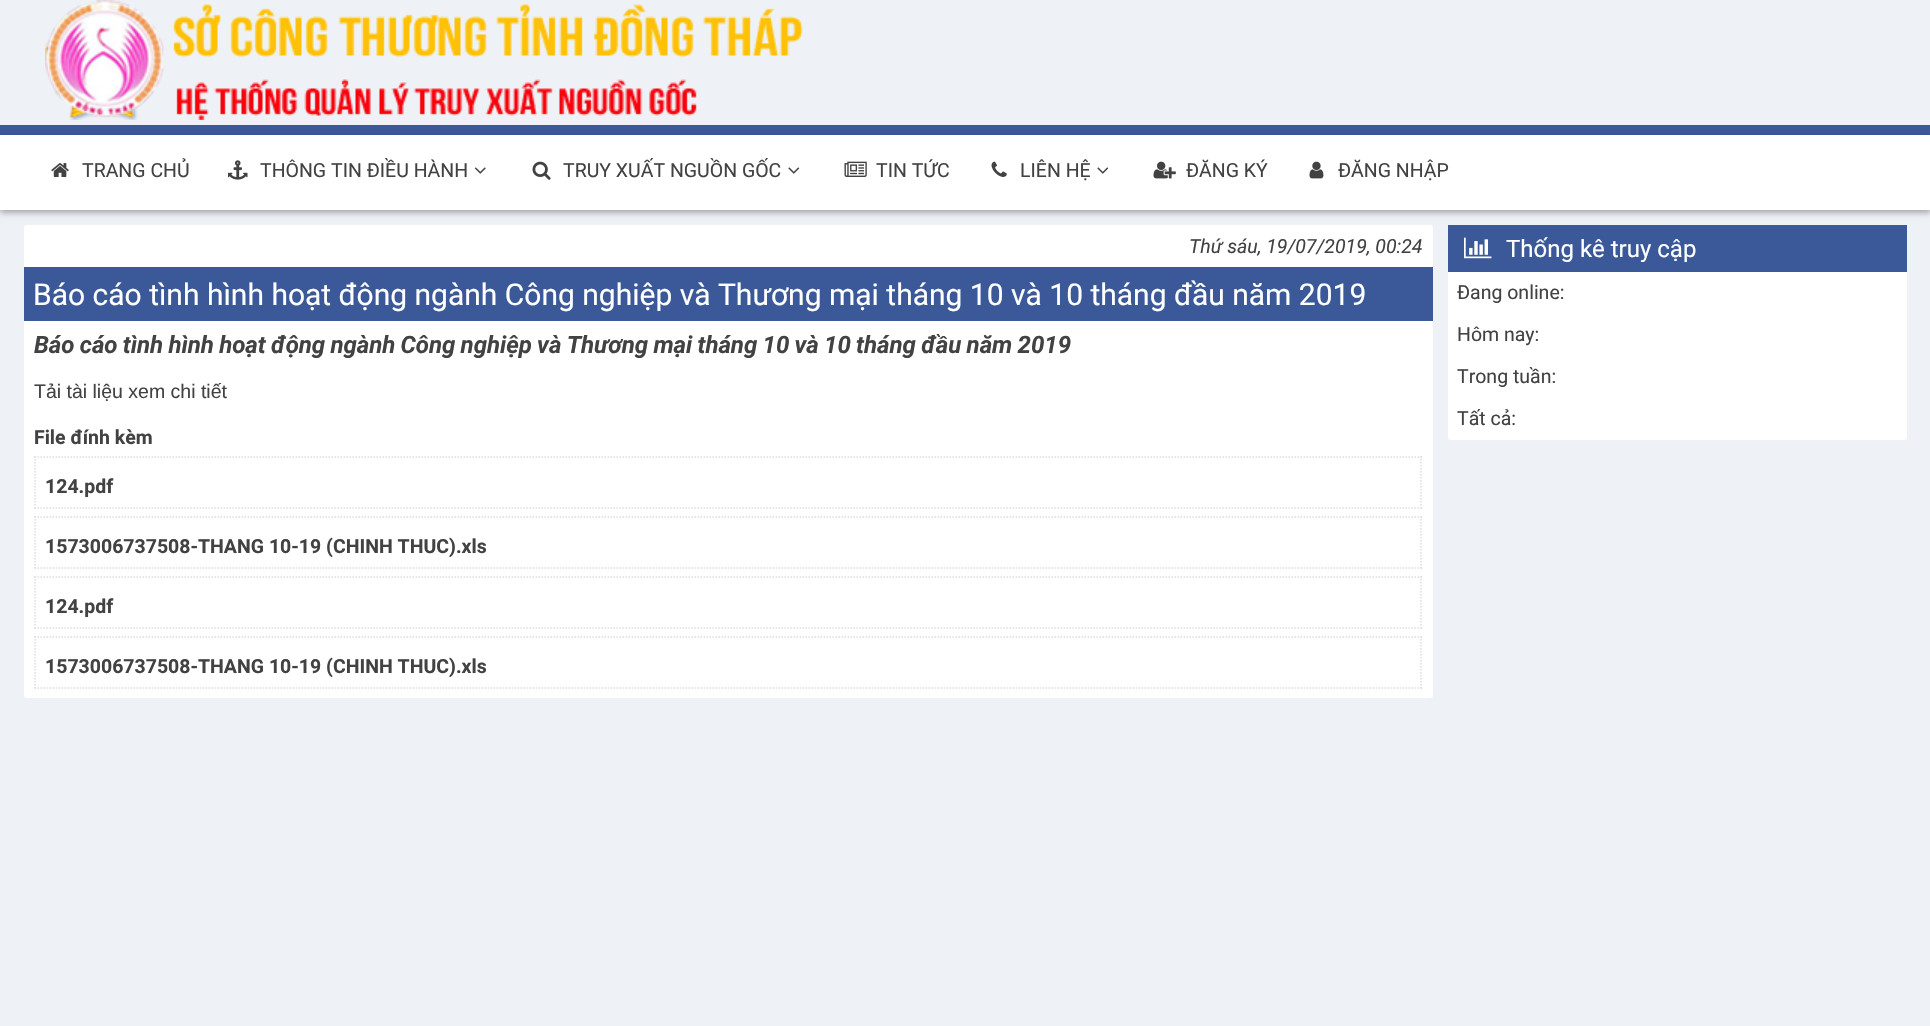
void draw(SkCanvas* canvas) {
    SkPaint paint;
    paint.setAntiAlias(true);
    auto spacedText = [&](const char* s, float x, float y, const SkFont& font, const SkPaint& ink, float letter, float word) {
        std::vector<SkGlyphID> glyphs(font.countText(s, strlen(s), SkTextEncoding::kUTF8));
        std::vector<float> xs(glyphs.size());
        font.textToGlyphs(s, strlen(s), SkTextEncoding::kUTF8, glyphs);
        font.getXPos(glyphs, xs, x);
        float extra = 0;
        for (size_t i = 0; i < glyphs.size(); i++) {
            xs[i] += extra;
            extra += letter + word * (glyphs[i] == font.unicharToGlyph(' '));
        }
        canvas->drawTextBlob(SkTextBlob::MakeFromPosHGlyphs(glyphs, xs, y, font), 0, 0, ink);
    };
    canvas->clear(0xFFEEF2F6);
    paint.setColor(0xFF3B5998);
    canvas->drawRect(SkRect::MakeXYWH(0, 125, 1930, 10), paint);
    canvas->drawImageRect(SkImages::DeferredFromEncodedData(SkData::MakeFromFileName("img1.png")), SkRect::MakeXYWH(45, 0, 758, 120), SkSamplingOptions());
    paint.setColor(0x4D000000);
    paint.setMaskFilter(SkMaskFilter::MakeBlur(kNormal_SkBlurStyle, 3));
    canvas->drawRect(SkRect::MakeXYWH(0, 138, 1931, 75), paint);
    paint.setMaskFilter(nullptr);
    paint.setColor(0xFFFFFFFF);
    canvas->drawRect(SkRect::MakeXYWH(0, 135, 1930, 75), paint);
    canvas->drawImageRect(SkImages::DeferredFromEncodedData(SkData::MakeFromFileName("img2.png")), SkRect::MakeXYWH(51, 163, 18, 14), SkSamplingOptions());
    SkFont font1(fontMgr->matchFamilyStyle("Roboto", SkFontStyle::Normal()), 19.5f);
    font1.setSubpixel(true);
    paint.setColor(0xFF424242);
    canvas->drawString("TRANG CHỦ", 82, 177, font1, paint);
    canvas->drawImageRect(SkImages::DeferredFromEncodedData(SkData::MakeFromFileName("img3.png")), SkRect::MakeXYWH(228, 160, 20, 20), SkSamplingOptions());
    canvas->drawString("THÔNG TIN ĐIỀU HÀNH", 260, 177, font1, paint);
    canvas->drawImageRect(SkImages::DeferredFromEncodedData(SkData::MakeFromFileName("img4.png")), SkRect::MakeXYWH(474, 167, 12, 7), SkSamplingOptions());
    canvas->drawImageRect(SkImages::DeferredFromEncodedData(SkData::MakeFromFileName("img5.png")), SkRect::MakeXYWH(532, 161, 19, 19), SkSamplingOptions());
    canvas->drawString("TRUY XUẤT NGUỒN GỐC", 563, 177, font1, paint);
    canvas->drawImageRect(SkImages::DeferredFromEncodedData(SkData::MakeFromFileName("img6.png")), SkRect::MakeXYWH(788, 167, 12, 7), SkSamplingOptions());
    canvas->drawImageRect(SkImages::DeferredFromEncodedData(SkData::MakeFromFileName("img7.png")), SkRect::MakeXYWH(844, 161, 23, 16), SkSamplingOptions());
    canvas->drawString("TIN TỨC", 876, 177, font1, paint);
    canvas->drawImageRect(SkImages::DeferredFromEncodedData(SkData::MakeFromFileName("img8.png")), SkRect::MakeXYWH(991, 161, 16, 16), SkSamplingOptions());
    canvas->drawString("LIÊN HỆ", 1020, 177, font1, paint);
    canvas->drawImageRect(SkImages::DeferredFromEncodedData(SkData::MakeFromFileName("img6.png")), SkRect::MakeXYWH(1097, 167, 12, 7), SkSamplingOptions());
    canvas->drawImageRect(SkImages::DeferredFromEncodedData(SkData::MakeFromFileName("img9.png")), SkRect::MakeXYWH(1153, 161, 23, 18), SkSamplingOptions());
    canvas->drawString("ĐĂNG KÝ", 1186, 177, font1, paint);
    canvas->drawImageRect(SkImages::DeferredFromEncodedData(SkData::MakeFromFileName("img10.png")), SkRect::MakeXYWH(1309, 161, 15, 18), SkSamplingOptions());
    canvas->drawString("ĐĂNG NHẬP", 1338, 177, font1, paint);
    paint.setColor(0xFFFFFFFF);
    canvas->drawRoundRect(SkRect::MakeXYWH(24, 225, 1409, 473), 3, 3, paint);
    SkFont font2(fontMgr->matchFamilyStyle("Roboto", SkFontStyle::Italic()), 19.5f);
    font2.setSubpixel(true);
    paint.setColor(0xFF424242);
    canvas->drawString("Thứ sáu, 19/07/2019, 00:24", 1189, 253, font2, paint);
    paint.setColor(0xFF3B5998);
    canvas->drawRect(SkRect::MakeXYWH(24, 267, 1409, 54), paint);
    SkFont font3(fontMgr->matchFamilyStyle("Roboto", SkFontStyle::Normal()), 30);
    font3.setSubpixel(true);
    paint.setColor(0xFFFFFFFF);
    canvas->drawString("Báo cáo tình hình hoạt động ngành Công nghiệp và Thương mại tháng 10 và 10 tháng đầu năm 2019", 33, 305, font3, paint);
    SkFont font4(fontMgr->matchFamilyStyle("Roboto", SkFontStyle::BoldItalic()), 24);
    font4.setSubpixel(true);
    paint.setColor(0xFF424242);
    spacedText("Báo cáo tình hình hoạt động ngành Công nghiệp và Thương mại tháng 10 và 10 tháng đầu năm 2019", 34, 353, font4, paint, 0, -0.6f);
    SkFont font5(fontMgr->matchFamilyStyle("Liberation Sans", SkFontStyle::Normal()), 19.5f);
    font5.setSubpixel(true);
    canvas->drawString("Tải tài liệu xem chi tiết", 34, 398, font5, paint);
    SkFont font6(fontMgr->matchFamilyStyle("Roboto", SkFontStyle::Bold()), 19.5f);
    font6.setSubpixel(true);
    canvas->drawString("File đính kèm", 34, 444, font6, paint);
    paint.setStyle(SkPaint::kStroke_Style);
    paint.setStrokeWidth(1.5f);
    paint.setColor(0xFFDDDDDD);
    paint.setPathEffect(SkDashPathEffect::Make({{1.5f, 1.5f}}, 0));
    canvas->drawPath(SkPathBuilder().moveTo(34.5f, 457).lineTo(1422, 457).detach(), paint);
    paint.setPathEffect(nullptr);
    paint.setPathEffect(SkDashPathEffect::Make({{1.5f, 1.5f}}, 0));
    canvas->drawPath(SkPathBuilder().moveTo(1421, 456).lineTo(1421, 508.5f).detach(), paint);
    paint.setPathEffect(nullptr);
    paint.setPathEffect(SkDashPathEffect::Make({{1.5f, 1.5f}}, 0));
    canvas->drawPath(SkPathBuilder().moveTo(34.5f, 508).lineTo(1422, 508).detach(), paint);
    paint.setPathEffect(nullptr);
    paint.setPathEffect(SkDashPathEffect::Make({{1.5f, 1.5f}}, 0));
    canvas->drawPath(SkPathBuilder().moveTo(35, 456).lineTo(35, 508.5f).detach(), paint);
    paint.setPathEffect(nullptr);
    paint.setStyle(SkPaint::kFill_Style);
    paint.setColor(0xFF424242);
    canvas->drawString("124.pdf", 45, 493, font6, paint);
    paint.setStyle(SkPaint::kStroke_Style);
    paint.setColor(0xFFDDDDDD);
    paint.setPathEffect(SkDashPathEffect::Make({{1.5f, 1.5f}}, 0));
    canvas->drawPath(SkPathBuilder().moveTo(34.5f, 517).lineTo(1422, 517).detach(), paint);
    paint.setPathEffect(nullptr);
    paint.setPathEffect(SkDashPathEffect::Make({{1.5f, 1.5f}}, 0));
    canvas->drawPath(SkPathBuilder().moveTo(1421, 516).lineTo(1421, 568.5f).detach(), paint);
    paint.setPathEffect(nullptr);
    paint.setPathEffect(SkDashPathEffect::Make({{1.5f, 1.5f}}, 0));
    canvas->drawPath(SkPathBuilder().moveTo(34.5f, 568).lineTo(1422, 568).detach(), paint);
    paint.setPathEffect(nullptr);
    paint.setPathEffect(SkDashPathEffect::Make({{1.5f, 1.5f}}, 0));
    canvas->drawPath(SkPathBuilder().moveTo(35, 516).lineTo(35, 568.5f).detach(), paint);
    paint.setPathEffect(nullptr);
    paint.setStyle(SkPaint::kFill_Style);
    paint.setColor(0xFF424242);
    canvas->drawString("1573006737508-THANG 10-19 (CHINH THUC).xls", 45, 553, font6, paint);
    paint.setStyle(SkPaint::kStroke_Style);
    paint.setColor(0xFFDDDDDD);
    paint.setPathEffect(SkDashPathEffect::Make({{1.5f, 1.5f}}, 0));
    canvas->drawPath(SkPathBuilder().moveTo(34.5f, 577).lineTo(1422, 577).detach(), paint);
    paint.setPathEffect(nullptr);
    paint.setPathEffect(SkDashPathEffect::Make({{1.5f, 1.5f}}, 0));
    canvas->drawPath(SkPathBuilder().moveTo(1421, 576).lineTo(1421, 628.5f).detach(), paint);
    paint.setPathEffect(nullptr);
    paint.setPathEffect(SkDashPathEffect::Make({{1.5f, 1.5f}}, 0));
    canvas->drawPath(SkPathBuilder().moveTo(34.5f, 628).lineTo(1422, 628).detach(), paint);
    paint.setPathEffect(nullptr);
    paint.setPathEffect(SkDashPathEffect::Make({{1.5f, 1.5f}}, 0));
    canvas->drawPath(SkPathBuilder().moveTo(35, 576).lineTo(35, 628.5f).detach(), paint);
    paint.setPathEffect(nullptr);
    paint.setStyle(SkPaint::kFill_Style);
    paint.setColor(0xFF424242);
    canvas->drawString("124.pdf", 45, 613, font6, paint);
    paint.setStyle(SkPaint::kStroke_Style);
    paint.setColor(0xFFDDDDDD);
    paint.setPathEffect(SkDashPathEffect::Make({{1.5f, 1.5f}}, 0));
    canvas->drawPath(SkPathBuilder().moveTo(34.5f, 637).lineTo(1422, 637).detach(), paint);
    paint.setPathEffect(nullptr);
    paint.setPathEffect(SkDashPathEffect::Make({{1.5f, 1.5f}}, 0));
    canvas->drawPath(SkPathBuilder().moveTo(1421, 636).lineTo(1421, 688.5f).detach(), paint);
    paint.setPathEffect(nullptr);
    paint.setPathEffect(SkDashPathEffect::Make({{1.5f, 1.5f}}, 0));
    canvas->drawPath(SkPathBuilder().moveTo(34.5f, 688).lineTo(1422, 688).detach(), paint);
    paint.setPathEffect(nullptr);
    paint.setPathEffect(SkDashPathEffect::Make({{1.5f, 1.5f}}, 0));
    canvas->drawPath(SkPathBuilder().moveTo(35, 636).lineTo(35, 688.5f).detach(), paint);
    paint.setPathEffect(nullptr);
    paint.setStyle(SkPaint::kFill_Style);
    paint.setColor(0xFF424242);
    canvas->drawString("1573006737508-THANG 10-19 (CHINH THUC).xls", 45, 673, font6, paint);
    paint.setColor(0xFFFFFFFF);
    canvas->drawRoundRect(SkRect::MakeXYWH(1448, 225, 459, 215), 3, 3, paint);
    paint.setColor(0xFF3B5998);
    canvas->drawRect(SkRect::MakeXYWH(1448, 225, 459, 47), paint);
    canvas->drawImageRect(SkImages::DeferredFromEncodedData(SkData::MakeFromFileName("img11.png")), SkRect::MakeXYWH(1464, 237, 28, 22), SkSamplingOptions());
    SkFont font7(fontMgr->matchFamilyStyle("Roboto", SkFontStyle::Normal()), 24);
    font7.setSubpixel(true);
    paint.setColor(0xFFFFFFFF);
    canvas->drawString("Thống kê truy cập", 1506, 257, font7, paint);
    paint.setColor(0xFF424242);
    canvas->drawString("Đang online:", 1457, 299, font1, paint);
    canvas->drawString("Hôm nay:", 1457, 341, font1, paint);
    canvas->drawString("Trong tuần:", 1457, 383, font1, paint);
    canvas->drawString("Tất cả:", 1457, 425, font1, paint);
}
